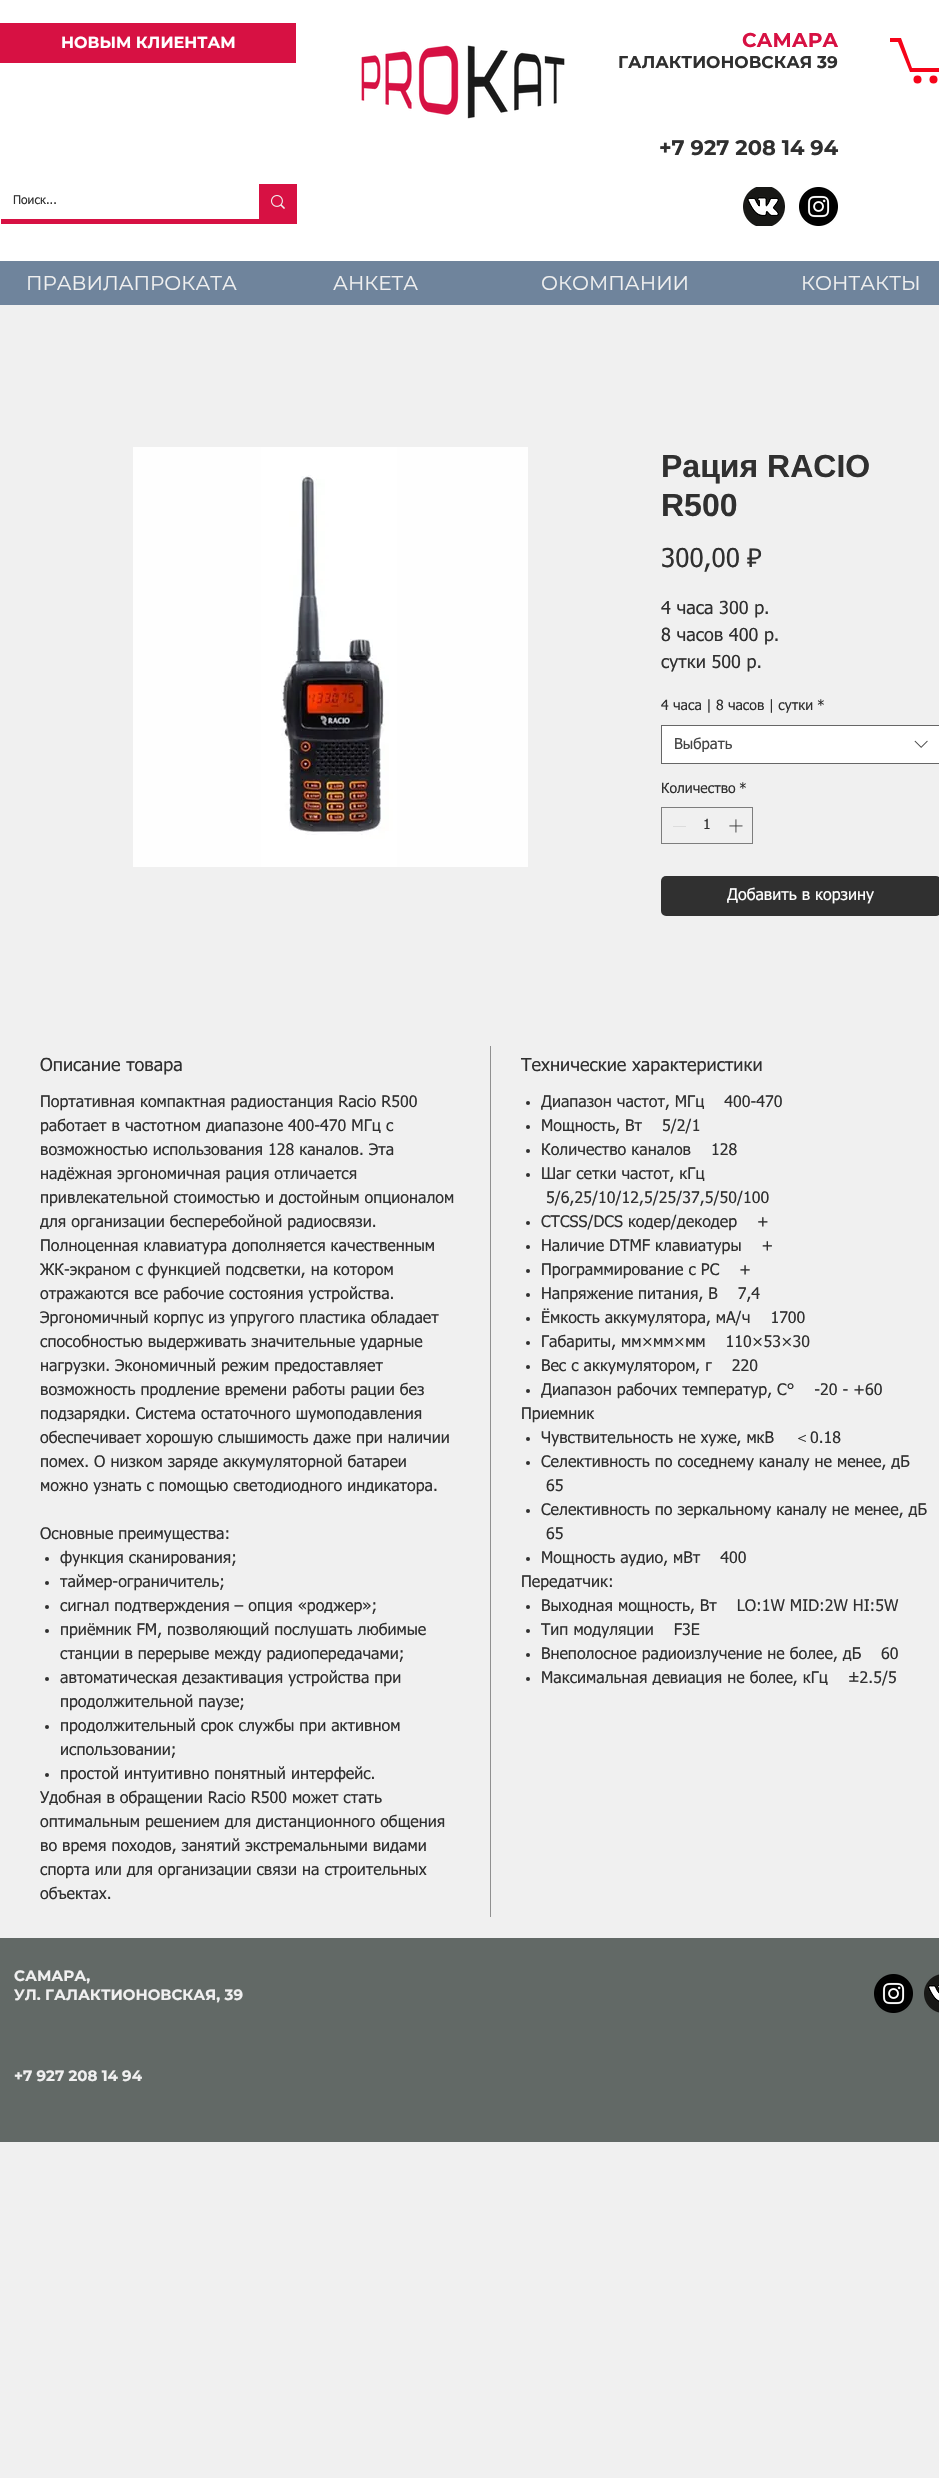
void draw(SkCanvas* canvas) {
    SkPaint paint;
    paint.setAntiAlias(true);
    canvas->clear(0xFFF0F0F0);
    paint.setColor(0xFFFFFFFF);
    canvas->drawRect(SkRect::MakeXYWH(0, 0, 939, 261), paint);
    paint.setColor(0xFFD71143);
    canvas->drawRect(SkRect::MakeXYWH(0, 23, 296, 40), paint);
    SkFont font1(fontMgr->matchFamilyStyle("Montserrat", SkFontStyle::Bold()), 16);
    font1.setSubpixel(true);
    paint.setColor(0xFFFFFFFF);
    canvas->drawString("НОВЫМ КЛИЕНТАМ", 61, 48, font1, paint);
    canvas->drawImageRect(SkImages::DeferredFromEncodedData(SkData::MakeFromFileName("img1.png")), SkRect::MakeXYWH(361, 45, 204, 74), SkSamplingOptions());
    SkFont font2(fontMgr->matchFamilyStyle("Montserrat", SkFontStyle::Bold()), 20);
    font2.setSubpixel(true);
    paint.setColor(0xFFD71143);
    canvas->drawString("САМАРА", 742, 47, font2, paint);
    SkFont font3(fontMgr->matchFamilyStyle("Montserrat", SkFontStyle::Bold()), 17);
    font3.setSubpixel(true);
    paint.setColor(0xFF303030);
    canvas->drawString("ГАЛАКТИОНОВСКАЯ 39", 618, 68, font3, paint);
    paint.setColor(0xFFF60419);
    canvas->drawPath(SkPathBuilder().moveTo(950, 50).lineTo(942, 72).lineTo(910, 72).lineTo(898, 42).lineTo(890, 42).lineTo(890, 38).lineTo(901, 38).lineTo(912, 68).lineTo(939, 68).lineTo(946, 50).detach(), paint);
    canvas->drawCircle(933.5f, 79.5f, 4, paint);
    canvas->drawCircle(917.5f, 79.5f, 4, paint);
    SkFont font4(fontMgr->matchFamilyStyle("Montserrat", SkFontStyle::Bold()), 21);
    font4.setSubpixel(true);
    paint.setColor(0xFF303030);
    canvas->drawString("+7 927 208 14 94", 659, 155, font4, paint);
    paint.setColor(0xFFD71143);
    canvas->drawRect(SkRect::MakeXYWH(1, 219, 296, 5), paint);
    SkFont font5(fontMgr->matchFamilyStyle("tahoma", SkFontStyle::Normal()), 12);
    font5.setSubpixel(true);
    paint.setColor(0xFF303030);
    canvas->drawString("Поиск...", 13, 204, font5, paint);
    paint.setColor(0xFFD71143);
    canvas->drawRect(SkRect::MakeXYWH(259, 184, 38, 35), paint);
    canvas->drawImageRect(SkImages::DeferredFromEncodedData(SkData::MakeFromFileName("img2.png")), SkRect::MakeXYWH(271, 195, 14, 14), SkSamplingOptions());
    canvas->drawImageRect(SkImages::DeferredFromEncodedData(SkData::MakeFromFileName("img3.png")), SkRect::MakeXYWH(743, 187, 42, 39), SkSamplingOptions());
    canvas->drawImageRect(SkImages::DeferredFromEncodedData(SkData::MakeFromFileName("img4.png")), SkRect::MakeXYWH(799, 187, 39, 39), SkSamplingOptions());
    paint.setColor(0xFF6F849C);
    canvas->drawRect(SkRect::MakeXYWH(0, 261, 939, 44), paint);
    SkFont font6(fontMgr->matchFamilyStyle("Montserrat", SkFontStyle::Normal()), 20);
    font6.setSubpixel(true);
    paint.setColor(0xFFF0F0F0);
    canvas->drawString("ПРАВИЛА ПРОКАТА", 26, 290, font6, paint);
    canvas->drawString("АНКЕТА", 333, 290, font6, paint);
    canvas->drawString("О КОМПАНИИ", 541, 290, font6, paint);
    canvas->drawString("КОНТАКТЫ", 801, 290, font6, paint);
    canvas->drawImageRect(SkImages::DeferredFromEncodedData(SkData::MakeFromFileName("img5.png")), SkRect::MakeXYWH(133, 447, 395, 420), SkSamplingOptions());
    SkFont font7(fontMgr->matchFamilyStyle("Liberation Sans", SkFontStyle::Bold()), 32);
    font7.setSubpixel(true);
    paint.setColor(0xFF303030);
    canvas->drawString("Рация RACIO", 661, 477, font7, paint);
    canvas->drawString("R500", 661, 516, font7, paint);
    SkFont font8(fontMgr->matchFamilyStyle("tahoma", SkFontStyle::Normal()), 26);
    font8.setSubpixel(true);
    canvas->drawString("300,00", 661, 567, font8, paint);
    SkFont font9(fontMgr->matchFamilyStyle("Noto Sans", SkFontStyle::Normal()), 26);
    font9.setSubpixel(true);
    canvas->drawString("₽", 747, 567, font9, paint);
    canvas->save();
    canvas->clipRect(SkRect::MakeXYWH(661, 596, 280, 81));
    SkFont font10(fontMgr->matchFamilyStyle("tahoma", SkFontStyle::Normal()), 18);
    font10.setSubpixel(true);
    canvas->drawString("4 часа 300 р.", 661, 614, font10, paint);
    canvas->restore();
    canvas->drawString("8 часов 400 р.", 661, 641, font10, paint);
    canvas->drawString("сутки 500 р.", 661, 668, font10, paint);
    SkFont font11(fontMgr->matchFamilyStyle("tahoma", SkFontStyle::Normal()), 14);
    font11.setSubpixel(true);
    canvas->drawString("4 часа | 8 часов | сутки", 661, 710, font11, paint);
    canvas->drawString("*", 817, 710, font11, paint);
    paint.setColor(0xFFFFFFFF);
    canvas->drawRect(SkRect::MakeXYWH(661.5f, 725.5f, 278, 38), paint);
    paint.setStyle(SkPaint::kStroke_Style);
    paint.setStrokeWidth(1);
    paint.setColor(0xFF666666);
    canvas->drawRect(SkRect::MakeXYWH(661.5f, 725.5f, 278, 38), paint);
    SkFont font12(fontMgr->matchFamilyStyle("tahoma", SkFontStyle::Normal()), 15);
    font12.setSubpixel(true);
    paint.setStyle(SkPaint::kFill_Style);
    paint.setColor(0xFF444444);
    canvas->drawString("Выбрать", 674, 749, font12, paint);
    canvas->drawImageRect(SkImages::DeferredFromEncodedData(SkData::MakeFromFileName("img6.png")), SkRect::MakeXYWH(914, 740, 14, 8), SkSamplingOptions());
    paint.setColor(0xFF303030);
    canvas->drawString("Количество", 661, 793, font11, paint);
    canvas->drawString("*", 739, 793, font11, paint);
    paint.setStyle(SkPaint::kStroke_Style);
    paint.setColor(0xFF7D7D7D);
    canvas->drawRect(SkRect::MakeXYWH(661.5f, 807.5f, 91, 36), paint);
    paint.setStyle(SkPaint::kFill_Style);
    paint.setColor(0xFFDCDCDC);
    canvas->drawRect(SkRect::MakeXYWH(673, 826, 13, 1), paint);
    paint.setColor(0xFF303030);
    canvas->drawString("1", 703, 829, font11, paint);
    canvas->drawImageRect(SkImages::DeferredFromEncodedData(SkData::MakeFromFileName("img7.png")), SkRect::MakeXYWH(729, 819, 14, 14), SkSamplingOptions());
    canvas->drawRoundRect(SkRect::MakeXYWH(661, 876, 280, 40), 5, 5, paint);
    SkFont font13(fontMgr->matchFamilyStyle("tahoma", SkFontStyle::Normal()), 16);
    font13.setSubpixel(true);
    paint.setColor(0xFFFFFFFF);
    canvas->drawString("Добавить в корзину", 727, 900, font13, paint);
    paint.setColor(0xFF909090);
    canvas->drawRect(SkRect::MakeXYWH(490, 1046, 1, 871), paint);
    paint.setColor(0xFF303030);
    canvas->drawString("Описание товара", 40, 1071, font10, paint);
    canvas->drawString("Портативная компактная радиостанция Racio R500", 40, 1107, font13, paint);
    canvas->drawString("работает в частотном диапазоне 400-470 МГц с", 40, 1131, font13, paint);
    canvas->drawString("возможностью использования 128 каналов. Эта", 40, 1155, font13, paint);
    canvas->drawString("надёжная эргономичная рация отличается", 40, 1179, font13, paint);
    canvas->drawString("привлекательной стоимостью и достойным опционалом", 40, 1203, font13, paint);
    canvas->drawString("для организации бесперебойной радиосвязи.", 40, 1227, font13, paint);
    canvas->drawString("Полноценная клавиатура дополняется качественным", 40, 1251, font13, paint);
    canvas->drawString("ЖК-экраном с функцией подсветки, на котором", 40, 1275, font13, paint);
    canvas->drawString("отражаются все рабочие состояния устройства.", 40, 1299, font13, paint);
    canvas->drawString("Эргономичный корпус из упругого пластика обладает", 40, 1323, font13, paint);
    canvas->drawString("способностью выдерживать значительные ударные", 40, 1347, font13, paint);
    canvas->drawString("нагрузки. Экономичный режим предоставляет", 40, 1371, font13, paint);
    canvas->drawString("возможность продление времени работы рации без", 40, 1395, font13, paint);
    canvas->drawString("подзарядки. Система остаточного шумоподавления", 40, 1419, font13, paint);
    canvas->drawString("обеспечивает хорошую слышимость даже при наличии", 40, 1443, font13, paint);
    canvas->drawString("помех. О низком заряде аккумуляторной батареи", 40, 1467, font13, paint);
    canvas->drawString("можно узнать с помощью светодиодного индикатора.", 40, 1491, font13, paint);
    canvas->drawString("Основные преимущества:", 40, 1539, font13, paint);
    canvas->drawCircle(47, 1559, 2, paint);
    canvas->drawString("функция сканирования;", 60, 1563, font13, paint);
    canvas->drawCircle(47, 1583, 2, paint);
    canvas->drawString("таймер-ограничитель;", 60, 1587, font13, paint);
    canvas->drawCircle(47, 1607, 2, paint);
    canvas->drawString("сигнал подтверждения – опция «роджер»;", 60, 1611, font13, paint);
    canvas->drawCircle(47, 1631, 2, paint);
    canvas->drawString("приёмник FM, позволяющий послушать любимые", 60, 1635, font13, paint);
    canvas->drawString("станции в перерыве между радиопередачами;", 60, 1659, font13, paint);
    canvas->drawCircle(47, 1679, 2, paint);
    canvas->drawString("автоматическая дезактивация устройства при", 60, 1683, font13, paint);
    canvas->drawString("продолжительной паузе;", 60, 1707, font13, paint);
    canvas->drawCircle(47, 1727, 2, paint);
    canvas->drawString("продолжительный срок службы при активном", 60, 1731, font13, paint);
    canvas->drawString("использовании;", 60, 1755, font13, paint);
    canvas->drawCircle(47, 1775, 2, paint);
    canvas->drawString("простой интуитивно понятный интерфейс.", 60, 1779, font13, paint);
    canvas->drawString("Удобная в обращении Racio R500 может стать", 40, 1803, font13, paint);
    canvas->drawString("оптимальным решением для дистанционного общения", 40, 1827, font13, paint);
    canvas->drawString("во время походов, занятий экстремальными видами", 40, 1851, font13, paint);
    canvas->drawString("спорта или для организации связи на строительных", 40, 1875, font13, paint);
    canvas->drawString("объектах.", 40, 1899, font13, paint);
    canvas->drawString("Технические характеристики", 521, 1071, font10, paint);
    canvas->drawCircle(528, 1103, 2, paint);
    canvas->drawString("Диапазон частот, МГц    400-470", 541, 1107, font13, paint);
    canvas->drawCircle(528, 1127, 2, paint);
    canvas->drawString("Мощность, Вт    5/2/1", 541, 1131, font13, paint);
    canvas->drawCircle(528, 1151, 2, paint);
    canvas->drawString("Количество каналов    128", 541, 1155, font13, paint);
    canvas->drawCircle(528, 1175, 2, paint);
    canvas->drawString("Шаг сетки частот, кГц", 541, 1179, font13, paint);
    canvas->drawString("5/6,25/10/12,5/25/37,5/50/100", 546, 1203, font13, paint);
    canvas->drawCircle(528, 1223, 2, paint);
    canvas->drawString("CTCSS/DCS кодер/декодер    +", 541, 1227, font13, paint);
    canvas->drawCircle(528, 1247, 2, paint);
    canvas->drawString("Наличие DTMF клавиатуры    +", 541, 1251, font13, paint);
    canvas->drawCircle(528, 1271, 2, paint);
    canvas->drawString("Программирование с PC    +", 541, 1275, font13, paint);
    canvas->drawCircle(528, 1295, 2, paint);
    canvas->drawString("Напряжение питания, В    7,4", 541, 1299, font13, paint);
    canvas->drawCircle(528, 1319, 2, paint);
    canvas->drawString("Ёмкость аккумулятора, мА/ч    1700", 541, 1323, font13, paint);
    canvas->drawCircle(528, 1343, 2, paint);
    canvas->drawString("Габариты, мм×мм×мм    110×53×30", 541, 1347, font13, paint);
    canvas->drawCircle(528, 1367, 2, paint);
    canvas->drawString("Вес с аккумулятором, г    220", 541, 1371, font13, paint);
    canvas->drawCircle(528, 1391, 2, paint);
    canvas->drawString("Диапазон рабочих температур, С°    -20 - +60", 541, 1395, font13, paint);
    canvas->drawString("Приемник", 521, 1419, font13, paint);
    canvas->drawCircle(528, 1439, 2, paint);
    canvas->drawString("Чувствительность не хуже, мкВ", 541, 1443, font13, paint);
    SkFont font14(fontMgr->matchFamilyStyle("WenQuanYi Zen Hei", SkFontStyle(500, SkFontStyle::kNormal_Width, SkFontStyle::kUpright_Slant)), 16);
    font14.setSubpixel(true);
    canvas->drawString("＜", 794, 1443, font14, paint);
    canvas->drawString("0.18", 810, 1443, font13, paint);
    canvas->drawCircle(528, 1463, 2, paint);
    canvas->drawString("Селективность по соседнему каналу не менее, дБ", 541, 1467, font13, paint);
    canvas->drawString("65", 546, 1491, font13, paint);
    canvas->drawCircle(528, 1511, 2, paint);
    canvas->drawString("Селективность по зеркальному каналу не менее, дБ", 541, 1515, font13, paint);
    canvas->drawString("65", 546, 1539, font13, paint);
    canvas->drawCircle(528, 1559, 2, paint);
    canvas->drawString("Мощность аудио, мВт    400", 541, 1563, font13, paint);
    canvas->drawString("Передатчик:", 521, 1587, font13, paint);
    canvas->drawCircle(528, 1607, 2, paint);
    canvas->drawString("Выходная мощность, Вт    LO:1W MID:2W HI:5W", 541, 1611, font13, paint);
    canvas->drawCircle(528, 1631, 2, paint);
    canvas->drawString("Тип модуляции    F3E", 541, 1635, font13, paint);
    canvas->drawCircle(528, 1655, 2, paint);
    canvas->drawString("Внеполосное радиоизлучение не более, дБ    60", 541, 1659, font13, paint);
    canvas->drawCircle(528, 1679, 2, paint);
    canvas->drawString("Максимальная девиация не более, кГц    ±2.5/5", 541, 1683, font13, paint);
    paint.setColor(0xFF626966);
    canvas->drawRect(SkRect::MakeXYWH(0, 1938, 939, 204), paint);
    SkFont font15(fontMgr->matchFamilyStyle("Montserrat", SkFontStyle::Bold()), 15);
    font15.setSubpixel(true);
    paint.setColor(0xFFF0F0F0);
    canvas->drawString("САМАРА,", 14, 1981, font15, paint);
    canvas->drawString("УЛ. ГАЛАКТИОНОВСКАЯ, 39", 14, 2000, font15, paint);
    paint.setColor(0xFFFFFFFF);
    canvas->drawPath(SkPathBuilder().moveTo(912, 1995).cubicTo(912, 2004, 903.5f, 2011, 893.5f, 2011).cubicTo(883.5f, 2011, 875, 2004, 875, 1995).cubicTo(875, 1986, 883.5f, 1979, 893.5f, 1979).cubicTo(903.5f, 1979, 912, 1986, 912, 1995).close().detach(), paint);
    canvas->drawImageRect(SkImages::DeferredFromEncodedData(SkData::MakeFromFileName("img8.png")), SkRect::MakeXYWH(874, 1974, 39, 39), SkSamplingOptions());
    canvas->drawImageRect(SkImages::DeferredFromEncodedData(SkData::MakeFromFileName("img9.png")), SkRect::MakeXYWH(924, 1974, 15, 39), SkSamplingOptions());
    paint.setColor(0xFFF0F0F0);
    canvas->drawString("+7 927 208 14 94", 14, 2081, font15, paint);
}
